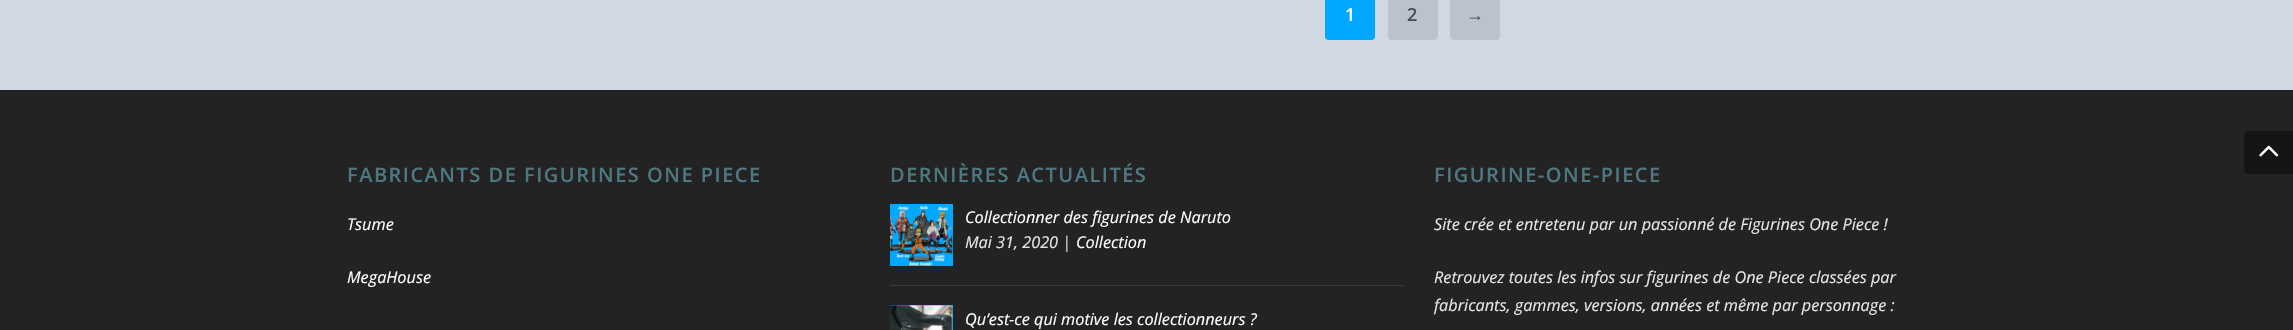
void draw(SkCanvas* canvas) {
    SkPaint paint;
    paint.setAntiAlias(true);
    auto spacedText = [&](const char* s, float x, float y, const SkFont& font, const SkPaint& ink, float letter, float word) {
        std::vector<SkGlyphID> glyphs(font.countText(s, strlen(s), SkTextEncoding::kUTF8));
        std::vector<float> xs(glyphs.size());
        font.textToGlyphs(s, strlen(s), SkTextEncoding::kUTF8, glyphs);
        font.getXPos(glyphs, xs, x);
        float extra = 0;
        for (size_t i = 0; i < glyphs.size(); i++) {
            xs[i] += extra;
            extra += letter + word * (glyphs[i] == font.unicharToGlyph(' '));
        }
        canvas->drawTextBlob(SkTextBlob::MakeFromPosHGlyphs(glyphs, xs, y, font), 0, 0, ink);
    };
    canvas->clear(0xFFCFD8E3);
    paint.setColor(0xFF00A8FF);
    canvas->drawRoundRect(SkRect::MakeXYWH(1325, -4, 50, 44), 4, 4, paint);
    SkFont font1(fontMgr->matchFamilyStyle("Open Sans", SkFontStyle(600, SkFontStyle::kNormal_Width, SkFontStyle::kUpright_Slant)), 18);
    font1.setSubpixel(true);
    paint.setColor(0xFFFFFFFF);
    canvas->drawString("1", 1345, 21, font1, paint);
    paint.setColor(0xFFBAC2CC);
    canvas->drawRoundRect(SkRect::MakeXYWH(1388, -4, 50, 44), 4, 4, paint);
    paint.setColor(0xFF4A4E52);
    canvas->drawString("2", 1407, 21, font1, paint);
    paint.setColor(0xFFBAC2CC);
    canvas->drawRoundRect(SkRect::MakeXYWH(1450, -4, 50, 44), 4, 4, paint);
    SkFont font2(fontMgr->matchFamilyStyle("Liberation Sans", SkFontStyle::Bold()), 18);
    font2.setSubpixel(true);
    paint.setColor(0xFF4A4E52);
    canvas->drawString("→", 1466, 21, font2, paint);
    paint.setColor(0xFF232323);
    canvas->drawRect(SkRect::MakeXYWH(0, 90, 2293, 240), paint);
    SkFont font3(fontMgr->matchFamilyStyle("Open Sans", SkFontStyle(600, SkFontStyle::kNormal_Width, SkFontStyle::kUpright_Slant)), 20);
    font3.setSubpixel(true);
    paint.setColor(0xFF4D7881);
    spacedText("FABRICANTS DE FIGURINES ONE PIECE", 347, 182, font3, paint, 1.5f, 0);
    SkFont font4(fontMgr->matchFamilyStyle("Open Sans", SkFontStyle::Italic()), 16.25f);
    font4.setSubpixel(true);
    paint.setColor(0xFFFFFFFF);
    canvas->drawString("Tsume", 347, 230, font4, paint);
    canvas->drawString("MegaHouse", 347, 283, font4, paint);
    paint.setColor(0xFF4D7881);
    spacedText("DERNIÈRES ACTUALITÉS", 890, 182, font3, paint, 1.5f, 0);
    paint.setColor(0xFF393939);
    canvas->drawRect(SkRect::MakeXYWH(890, 285, 514, 1), paint);
    paint.setColor(0xFF00A8FF);
    canvas->drawRect(SkRect::MakeXYWH(890, 204, 63, 62), paint);
    canvas->drawImageRect(SkImages::DeferredFromEncodedData(SkData::MakeFromFileName("img1.png")), SkRect::MakeXYWH(890, 205, 63, 61), SkSamplingOptions());
    paint.setColor(0xFFFFFFFF);
    canvas->drawString("Collectionner des figurines de Naruto", 965, 223, font4, paint);
    paint.setColor(0xFFE5E5E5);
    canvas->drawString("Mai 31, 2020", 965, 248, font4, paint);
    paint.setColor(0xFFD3D3D3);
    canvas->drawString("|", 1062, 248, font4, paint);
    paint.setColor(0xFFFFFFFF);
    canvas->drawString("Collection", 1076, 248, font4, paint);
    paint.setColor(0xFF00A8FF);
    canvas->drawRect(SkRect::MakeXYWH(890, 305, 63, 25), paint);
    canvas->drawImageRect(SkImages::DeferredFromEncodedData(SkData::MakeFromFileName("img2.png")), SkRect::MakeXYWH(890, 305, 63, 25), SkSamplingOptions());
    paint.setColor(0xFFFFFFFF);
    canvas->drawString("Qu’est-ce qui motive les collectionneurs ?", 965, 325, font4, paint);
    paint.setColor(0xFF4D7881);
    spacedText("FIGURINE-ONE-PIECE", 1434, 182, font3, paint, 1.5f, 0);
    paint.setColor(0xFFE5E5E5);
    canvas->drawString("Site crée et entretenu par un passionné de Figurines One Piece !", 1434, 230, font4, paint);
    canvas->drawString("Retrouvez toutes les infos sur figurines de One Piece classées par", 1434, 283, font4, paint);
    canvas->save();
    canvas->clipPath(SkPathBuilder().moveTo(1438, 90).lineTo(1942, 90).cubicTo(1944, 90, 1946, 92, 1946, 94).lineTo(1946, 581).cubicTo(1946, 583, 1944, 585, 1942, 585).lineTo(1438, 585).cubicTo(1436, 585, 1434, 583, 1434, 581).lineTo(1434, 94).cubicTo(1434, 92, 1436, 90, 1438, 90).close().detach(), true);
    canvas->drawString("fabricants, gammes, versions, années et même par personnage :", 1434, 311, font4, paint);
    canvas->restore();
    paint.setColor(0xFF151515);
    canvas->drawPath(SkPathBuilder().moveTo(2248, 131).lineTo(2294, 131).lineTo(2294, 174).lineTo(2248, 174).cubicTo(2246, 174, 2244, 172, 2244, 170).lineTo(2244, 135).cubicTo(2244, 133, 2246, 131, 2248, 131).close().detach(), paint);
    canvas->drawImageRect(SkImages::DeferredFromEncodedData(SkData::MakeFromFileName("img3.png")), SkRect::MakeXYWH(2259, 145, 20, 12), SkSamplingOptions());
}
